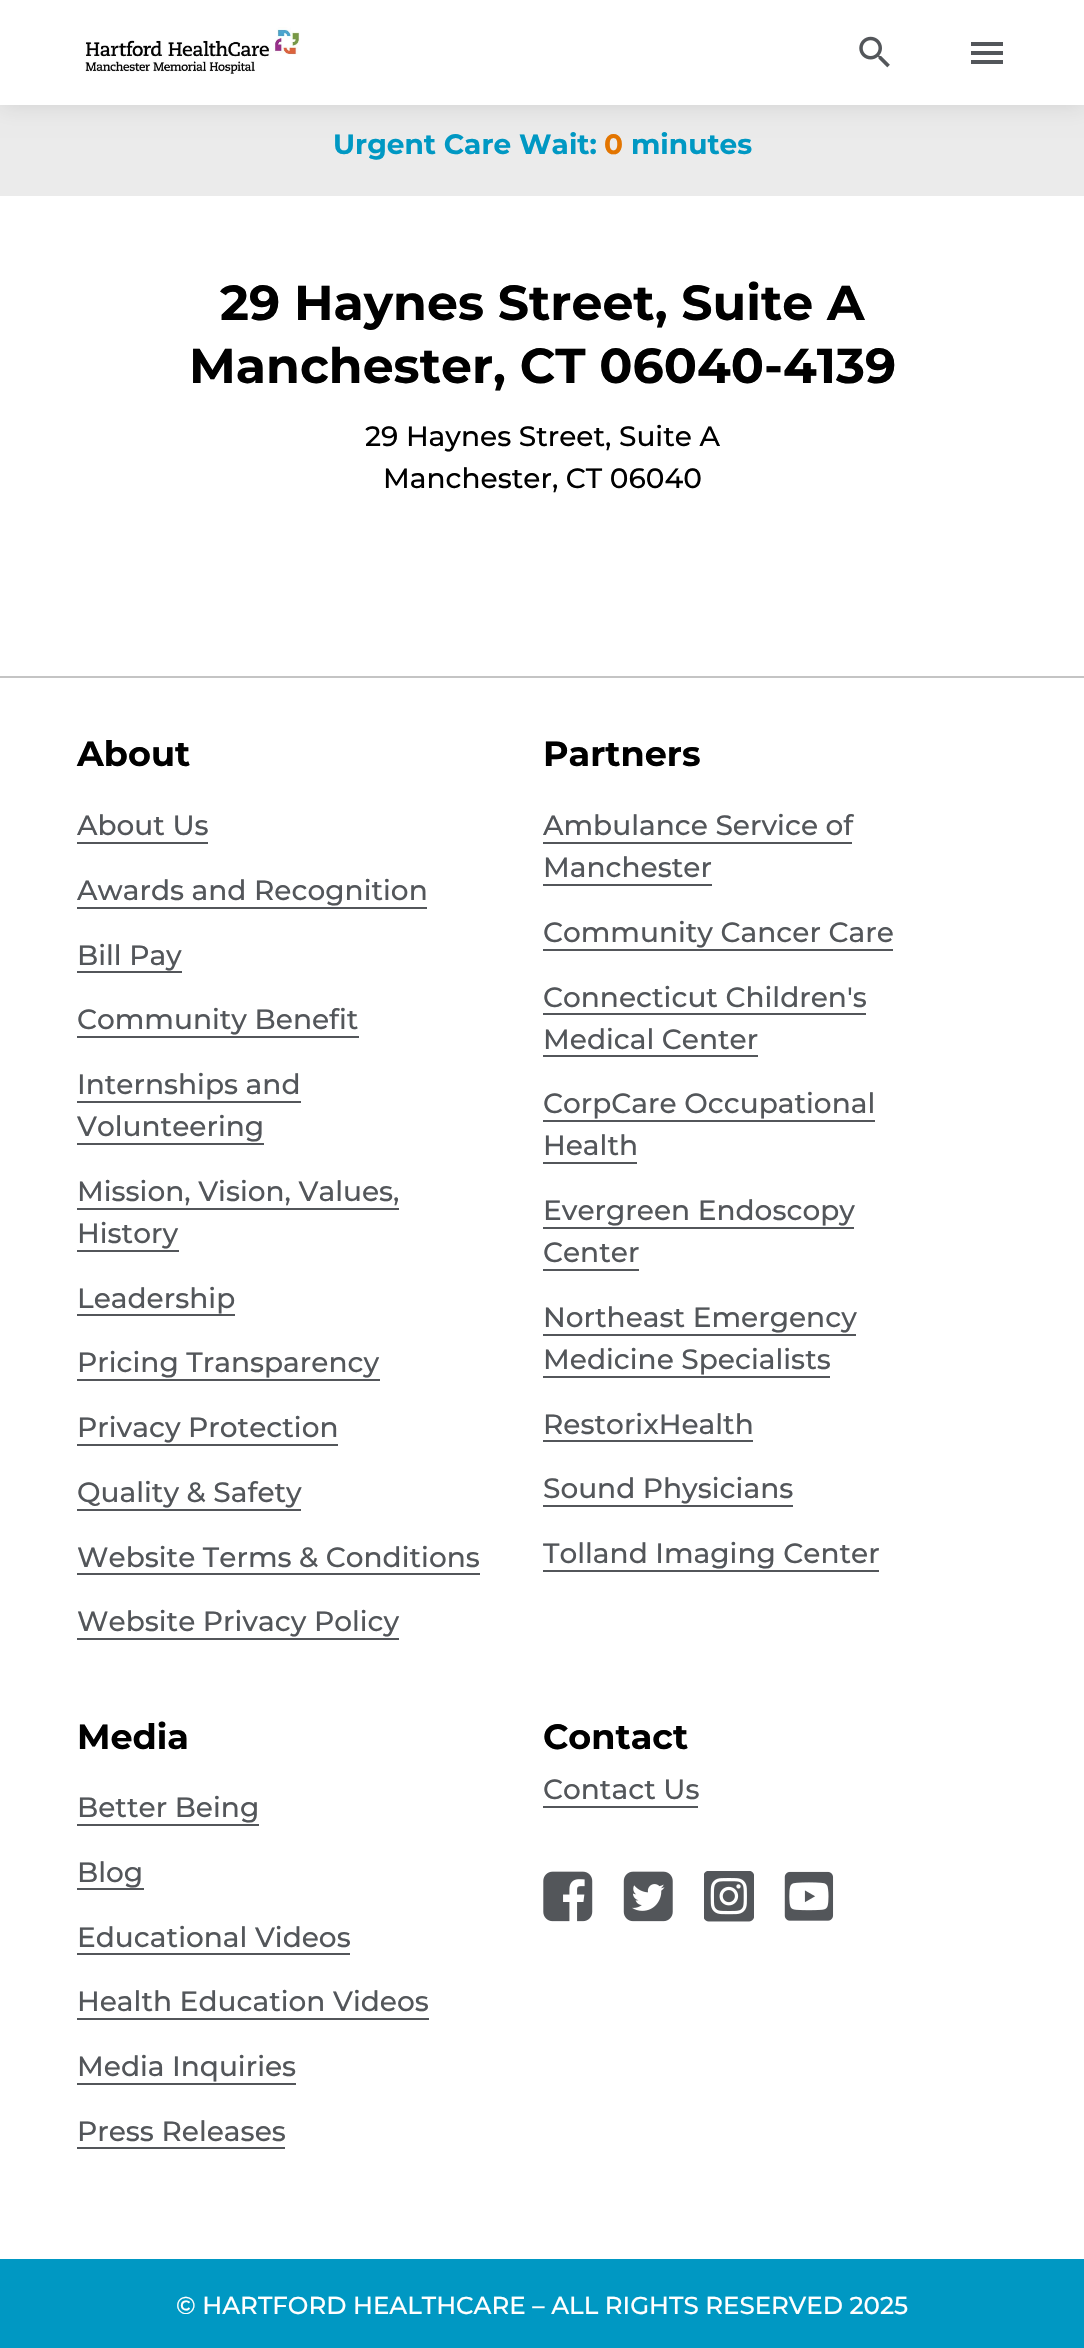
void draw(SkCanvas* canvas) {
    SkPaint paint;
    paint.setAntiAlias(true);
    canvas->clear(0xFFFFFFFF);
    paint.setColor(0xFFEBEBEB);
    canvas->drawRect(SkRect::MakeXYWH(0, 105, 1084, 91), paint);
    paint.setColor(0x1A000000);
    paint.setMaskFilter(SkMaskFilter::MakeBlur(kNormal_SkBlurStyle, 10.5f));
    canvas->drawRect(SkRect::MakeXYWH(0, 2, 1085, 105), paint);
    paint.setMaskFilter(nullptr);
    paint.setColor(0xFFFFFFFF);
    canvas->drawRect(SkRect::MakeXYWH(0, 0, 1084, 105), paint);
    canvas->drawImageRect(SkImages::DeferredFromEncodedData(SkData::MakeFromFileName("img1.png")), SkRect::MakeXYWH(84, 27, 216, 47), SkSamplingOptions());
    canvas->drawImageRect(SkImages::DeferredFromEncodedData(SkData::MakeFromFileName("img2.png")), SkRect::MakeXYWH(859, 36, 31, 32), SkSamplingOptions());
    paint.setColor(0xFF53565A);
    canvas->drawRect(SkRect::MakeXYWH(971, 51, 32, 4), paint);
    canvas->drawRect(SkRect::MakeXYWH(971, 42, 32, 4), paint);
    canvas->drawRect(SkRect::MakeXYWH(971, 60, 32, 4), paint);
    SkFont font1(fontMgr->matchFamilyStyle("Montserrat", SkFontStyle::Bold()), 28);
    font1.setSubpixel(true);
    paint.setColor(0xFF0098C3);
    canvas->drawString("Urgent Care Wait:", 333, 154, font1, paint);
    paint.setColor(0xFFE37500);
    canvas->drawString("0", 604, 154, font1, paint);
    paint.setColor(0xFF0098C3);
    canvas->drawString("minutes", 631, 154, font1, paint);
    SkFont font2(fontMgr->matchFamilyStyle("Montserrat", SkFontStyle::Bold()), 49);
    font2.setSubpixel(true);
    paint.setColor(0xFF000000);
    canvas->drawString("29 Haynes Street, Suite A", 220, 320, font2, paint);
    canvas->drawString("Manchester, CT 06040-4139", 189, 383, font2, paint);
    SkFont font3(fontMgr->matchFamilyStyle("Montserrat", SkFontStyle(500, SkFontStyle::kNormal_Width, SkFontStyle::kUpright_Slant)), 28);
    font3.setSubpixel(true);
    canvas->drawString("29 Haynes Street, Suite A", 365, 446, font3, paint);
    canvas->drawString("Manchester, CT 06040", 383, 488, font3, paint);
    paint.setColor(0xFFC4C4C4);
    canvas->drawRect(SkRect::MakeXYWH(0, 676, 1084, 2), paint);
    SkFont font4(fontMgr->matchFamilyStyle("Montserrat", SkFontStyle::Bold()), 35);
    font4.setSubpixel(true);
    paint.setColor(0xFF000000);
    canvas->drawString("About", 77, 766, font4, paint);
    paint.setColor(0xFF53565A);
    canvas->drawString("About Us", 77, 835, font3, paint);
    canvas->drawRect(SkRect::MakeXYWH(77, 842, 131, 2), paint);
    canvas->drawString("Awards and Recognition", 77, 900, font3, paint);
    canvas->drawRect(SkRect::MakeXYWH(77, 907, 350, 2), paint);
    canvas->drawString("Bill Pay", 77, 965, font3, paint);
    canvas->drawRect(SkRect::MakeXYWH(77, 971, 105, 2), paint);
    canvas->drawString("Community Benefit", 77, 1029, font3, paint);
    canvas->drawRect(SkRect::MakeXYWH(77, 1036, 282, 2), paint);
    canvas->drawString("Internships and", 77, 1094, font3, paint);
    canvas->drawRect(SkRect::MakeXYWH(77, 1101, 224, 2), paint);
    canvas->drawString("Volunteering", 77, 1136, font3, paint);
    canvas->drawRect(SkRect::MakeXYWH(77, 1143, 187, 2), paint);
    canvas->drawString("Mission, Vision, Values,", 77, 1201, font3, paint);
    canvas->drawRect(SkRect::MakeXYWH(77, 1208, 322, 2), paint);
    canvas->drawString("History", 77, 1243, font3, paint);
    canvas->drawRect(SkRect::MakeXYWH(77, 1250, 102, 2), paint);
    canvas->drawString("Leadership", 77, 1308, font3, paint);
    canvas->drawRect(SkRect::MakeXYWH(77, 1314, 158, 2), paint);
    canvas->drawString("Pricing Transparency", 77, 1372, font3, paint);
    canvas->drawRect(SkRect::MakeXYWH(77, 1379, 303, 2), paint);
    canvas->drawString("Privacy Protection", 77, 1437, font3, paint);
    canvas->drawRect(SkRect::MakeXYWH(77, 1444, 261, 2), paint);
    canvas->drawString("Quality & Safety", 77, 1502, font3, paint);
    canvas->drawRect(SkRect::MakeXYWH(77, 1509, 224, 2), paint);
    canvas->drawString("Website Terms & Conditions", 77, 1567, font3, paint);
    canvas->drawRect(SkRect::MakeXYWH(77, 1573, 403, 2), paint);
    canvas->drawString("Website Privacy Policy", 77, 1631, font3, paint);
    canvas->drawRect(SkRect::MakeXYWH(77, 1638, 322, 2), paint);
    paint.setColor(0xFF000000);
    canvas->drawString("Partners", 543, 766, font4, paint);
    paint.setColor(0xFF53565A);
    canvas->drawString("Ambulance Service of", 543, 835, font3, paint);
    canvas->drawRect(SkRect::MakeXYWH(543, 842, 309, 2), paint);
    canvas->drawString("Manchester", 543, 877, font3, paint);
    canvas->drawRect(SkRect::MakeXYWH(543, 884, 169, 2), paint);
    canvas->drawString("Community Cancer Care", 543, 942, font3, paint);
    canvas->drawRect(SkRect::MakeXYWH(543, 949, 350, 2), paint);
    canvas->drawString("Connecticut Children's", 543, 1007, font3, paint);
    canvas->drawRect(SkRect::MakeXYWH(543, 1013, 323, 2), paint);
    canvas->drawString("Medical Center", 543, 1049, font3, paint);
    canvas->drawRect(SkRect::MakeXYWH(543, 1055, 215, 2), paint);
    canvas->drawString("CorpCare Occupational", 543, 1113, font3, paint);
    canvas->drawRect(SkRect::MakeXYWH(543, 1120, 332, 2), paint);
    canvas->drawString("Health", 543, 1155, font3, paint);
    canvas->drawRect(SkRect::MakeXYWH(543, 1162, 94, 2), paint);
    canvas->drawString("Evergreen Endoscopy", 543, 1220, font3, paint);
    canvas->drawRect(SkRect::MakeXYWH(543, 1227, 311, 2), paint);
    canvas->drawString("Center", 543, 1262, font3, paint);
    canvas->drawRect(SkRect::MakeXYWH(543, 1269, 96, 2), paint);
    canvas->drawString("Northeast Emergency", 543, 1327, font3, paint);
    canvas->drawRect(SkRect::MakeXYWH(543, 1334, 313, 2), paint);
    canvas->drawString("Medicine Specialists", 543, 1369, font3, paint);
    canvas->drawRect(SkRect::MakeXYWH(543, 1376, 287, 2), paint);
    canvas->drawString("RestorixHealth", 543, 1434, font3, paint);
    canvas->drawRect(SkRect::MakeXYWH(543, 1440, 210, 2), paint);
    canvas->drawString("Sound Physicians", 543, 1498, font3, paint);
    canvas->drawRect(SkRect::MakeXYWH(543, 1505, 250, 2), paint);
    canvas->drawString("Tolland Imaging Center", 543, 1563, font3, paint);
    canvas->drawRect(SkRect::MakeXYWH(543, 1570, 336, 2), paint);
    paint.setColor(0xFF000000);
    canvas->drawString("Media", 77, 1749, font4, paint);
    paint.setColor(0xFF53565A);
    canvas->drawString("Better Being", 77, 1817, font3, paint);
    canvas->drawRect(SkRect::MakeXYWH(77, 1824, 182, 2), paint);
    canvas->drawString("Blog", 77, 1882, font3, paint);
    canvas->drawRect(SkRect::MakeXYWH(77, 1888, 67, 2), paint);
    canvas->drawString("Educational Videos", 77, 1947, font3, paint);
    canvas->drawRect(SkRect::MakeXYWH(77, 1953, 273, 2), paint);
    canvas->drawString("Health Education Videos", 77, 2011, font3, paint);
    canvas->drawRect(SkRect::MakeXYWH(77, 2018, 352, 2), paint);
    canvas->drawString("Media Inquiries", 77, 2076, font3, paint);
    canvas->drawRect(SkRect::MakeXYWH(77, 2083, 219, 2), paint);
    canvas->drawString("Press Releases", 77, 2141, font3, paint);
    canvas->drawRect(SkRect::MakeXYWH(77, 2147, 208, 2), paint);
    paint.setColor(0xFF000000);
    canvas->drawString("Contact", 543, 1749, font4, paint);
    paint.setColor(0xFF53565A);
    canvas->drawString("Contact Us", 543, 1799, font3, paint);
    canvas->drawRect(SkRect::MakeXYWH(543, 1806, 155, 2), paint);
    canvas->drawImageRect(SkImages::DeferredFromEncodedData(SkData::MakeFromFileName("img3.png")), SkRect::MakeXYWH(543, 1871, 50, 51), SkSamplingOptions());
    canvas->drawImageRect(SkImages::DeferredFromEncodedData(SkData::MakeFromFileName("img4.png")), SkRect::MakeXYWH(623, 1871, 50, 51), SkSamplingOptions());
    canvas->drawImageRect(SkImages::DeferredFromEncodedData(SkData::MakeFromFileName("img5.png")), SkRect::MakeXYWH(704, 1871, 50, 51), SkSamplingOptions());
    canvas->drawImageRect(SkImages::DeferredFromEncodedData(SkData::MakeFromFileName("img6.png")), SkRect::MakeXYWH(784, 1871, 50, 50), SkSamplingOptions());
    paint.setColor(0xFF0098C3);
    canvas->drawRect(SkRect::MakeXYWH(0, 2259, 1084, 89), paint);
    SkFont font5(fontMgr->matchFamilyStyle("Montserrat", SkFontStyle(500, SkFontStyle::kNormal_Width, SkFontStyle::kUpright_Slant)), 24.5f);
    font5.setSubpixel(true);
    paint.setColor(0xFFFFFFFF);
    canvas->drawString("© HARTFORD HEALTHCARE – ALL RIGHTS RESERVED 2025", 176, 2314, font5, paint);
}
